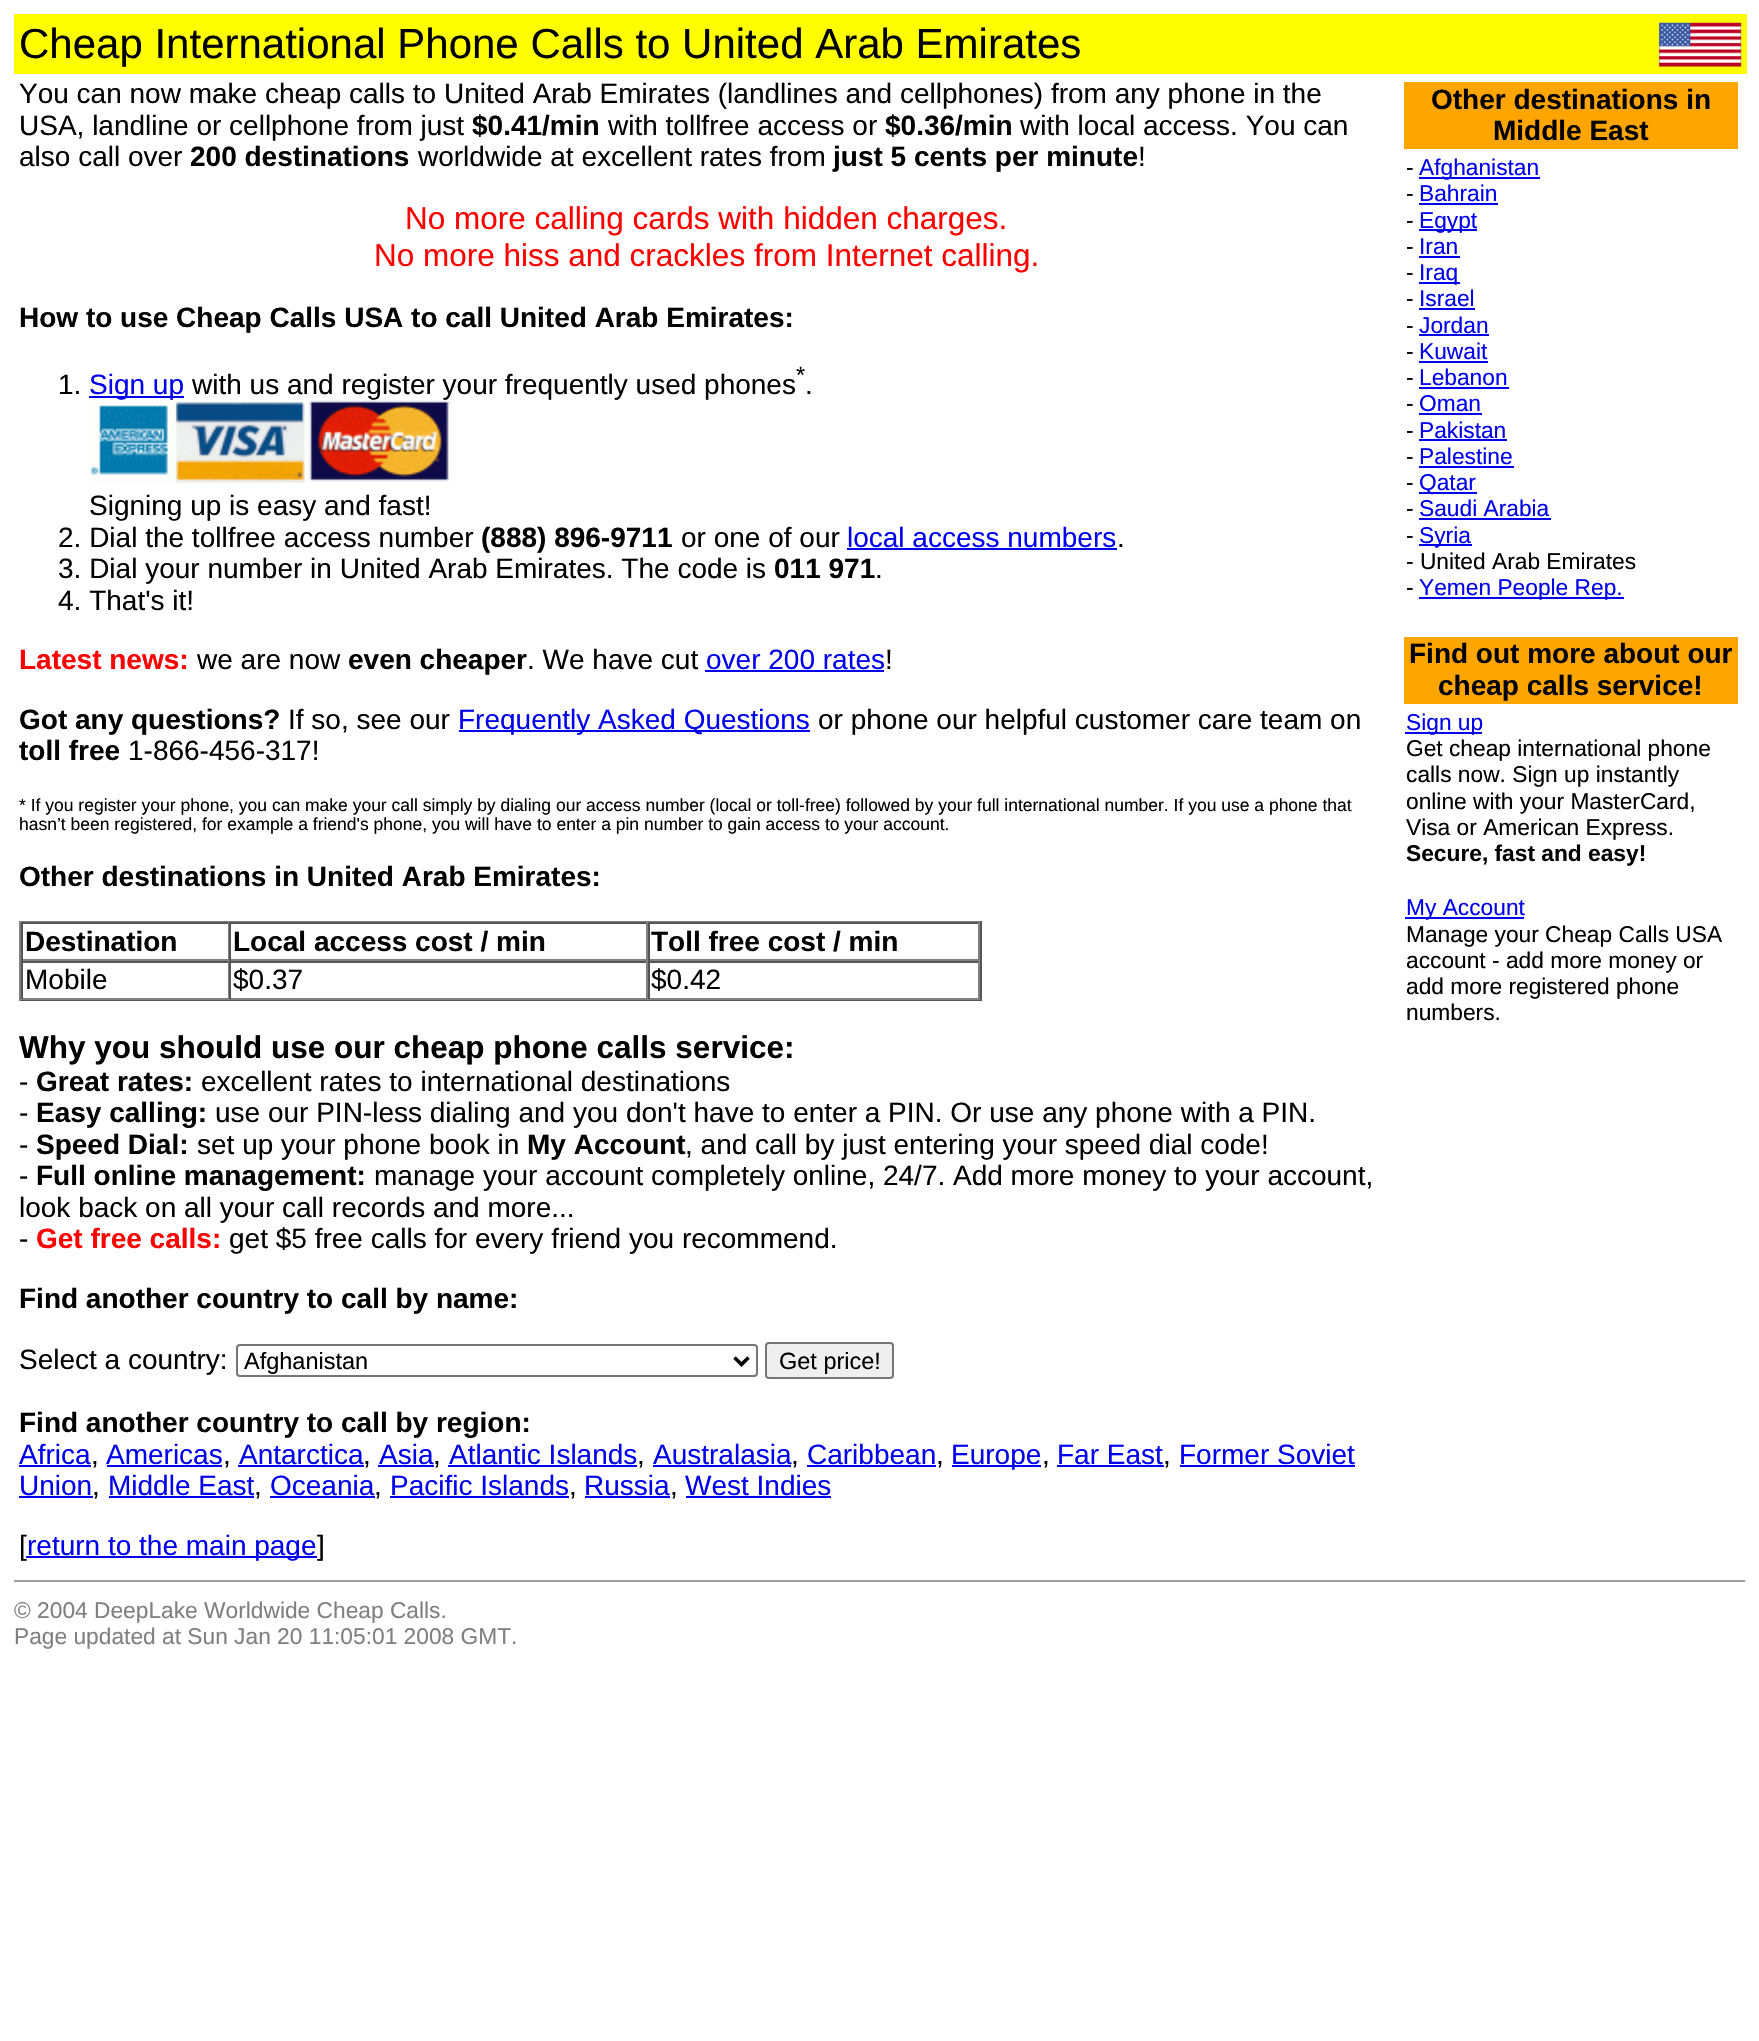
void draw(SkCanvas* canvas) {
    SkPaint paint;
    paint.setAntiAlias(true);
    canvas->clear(0xFFFFFFFF);
    paint.setColor(0xFFFFFF00);
    canvas->drawRect(SkRect::MakeXYWH(14, 14, 1733, 60), paint);
    SkFont font1(fontMgr->matchFamilyStyle("Liberation Sans", SkFontStyle::Normal()), 42);
    font1.setSubpixel(true);
    paint.setColor(0xFF000000);
    canvas->drawString("Cheap International Phone Calls to United Arab Emirates", 19, 58, font1, paint);
    canvas->drawImageRect(SkImages::DeferredFromEncodedData(SkData::MakeFromFileName("img1.png")), SkRect::MakeXYWH(1659, 22, 83, 45), SkSamplingOptions());
    SkFont font2(fontMgr->matchFamilyStyle("Liberation Sans", SkFontStyle::Normal()), 28);
    font2.setSubpixel(true);
    canvas->drawString("You can now make cheap calls to United Arab Emirates (landlines and cellphones) from any phone in the", 19, 103, font2, paint);
    canvas->drawString("USA, landline or cellphone from just", 19, 135, font2, paint);
    SkFont font3(fontMgr->matchFamilyStyle("Liberation Sans", SkFontStyle::Bold()), 28);
    font3.setSubpixel(true);
    canvas->drawString("$0.41/min", 472, 135, font3, paint);
    canvas->drawString("with tollfree access or", 608, 135, font2, paint);
    canvas->drawString("$0.36/min", 885, 135, font3, paint);
    canvas->drawString("with local access. You can", 1020, 135, font2, paint);
    canvas->drawString("also call over", 19, 166, font2, paint);
    canvas->drawString("200 destinations", 190, 166, font3, paint);
    canvas->drawString("worldwide at excellent rates from", 418, 166, font2, paint);
    canvas->drawString("just 5 cents per minute", 833, 166, font3, paint);
    canvas->drawString("!", 1138, 166, font2, paint);
    SkFont font4(fontMgr->matchFamilyStyle("Liberation Sans", SkFontStyle::Normal()), 31.5f);
    font4.setSubpixel(true);
    paint.setColor(0xFFFF0000);
    canvas->drawString("No more calling cards with hidden charges.", 405, 229, font4, paint);
    canvas->drawString("No more hiss and crackles from Internet calling.", 374, 266, font4, paint);
    paint.setColor(0xFF000000);
    canvas->drawString("How to use Cheap Calls USA to call United Arab Emirates:", 19, 327, font3, paint);
    SkFont font5(fontMgr->matchFamilyStyle("Liberation Sans", SkFontStyle::Normal()), 23.5f);
    font5.setSubpixel(true);
    canvas->drawString("*", 796, 383, font5, paint);
    canvas->drawString("1.", 58, 394, font2, paint);
    paint.setColor(0xFF0000EE);
    canvas->drawRect(SkRect::MakeXYWH(89, 396, 95, 2), paint);
    canvas->drawString("Sign up", 89, 394, font2, paint);
    paint.setColor(0xFF000000);
    canvas->drawString("with us and register your frequently used phones", 192, 394, font2, paint);
    canvas->drawString(".", 805, 394, font2, paint);
    canvas->drawImageRect(SkImages::DeferredFromEncodedData(SkData::MakeFromFileName("img2.png")), SkRect::MakeXYWH(90, 400, 361, 83), SkSamplingOptions());
    canvas->drawString("Signing up is easy and fast!", 89, 515, font2, paint);
    canvas->drawString("2. Dial the tollfree access number", 58, 547, font2, paint);
    canvas->drawString("(888) 896-9711", 481, 547, font3, paint);
    canvas->drawString("or one of our", 681, 547, font2, paint);
    paint.setColor(0xFF0000EE);
    canvas->drawString("local access numbers", 847, 547, font2, paint);
    canvas->drawRect(SkRect::MakeXYWH(847, 548, 270, 2), paint);
    paint.setColor(0xFF000000);
    canvas->drawString(".", 1117, 547, font2, paint);
    canvas->drawString("3. Dial your number in United Arab Emirates. The code is", 58, 578, font2, paint);
    canvas->drawString("011 971", 774, 578, font3, paint);
    canvas->drawString(".", 875, 578, font2, paint);
    canvas->drawString("4. That's it!", 58, 610, font2, paint);
    paint.setColor(0xFFFF0000);
    canvas->drawString("Latest news:", 19, 669, font3, paint);
    paint.setColor(0xFF000000);
    canvas->drawString("we are now", 197, 669, font2, paint);
    canvas->drawString("even cheaper", 348, 669, font3, paint);
    canvas->drawString(". We have cut", 527, 669, font2, paint);
    paint.setColor(0xFF0000EE);
    canvas->drawString("over 200 rates", 706, 669, font2, paint);
    canvas->drawRect(SkRect::MakeXYWH(705, 670, 179, 2), paint);
    paint.setColor(0xFF000000);
    canvas->drawString("!", 885, 669, font2, paint);
    canvas->drawString("Got any questions?", 19, 729, font3, paint);
    canvas->drawString("If so, see our", 288, 729, font2, paint);
    paint.setColor(0xFF0000EE);
    canvas->drawRect(SkRect::MakeXYWH(459, 730, 351, 2), paint);
    canvas->drawString("Frequently Asked Questions", 458, 729, font2, paint);
    paint.setColor(0xFF000000);
    canvas->drawString("or phone our helpful customer care team on", 818, 729, font2, paint);
    canvas->drawString("toll free", 19, 760, font3, paint);
    canvas->drawString("1-866-456-317!", 128, 760, font2, paint);
    SkFont font6(fontMgr->matchFamilyStyle("Liberation Sans", SkFontStyle::Normal()), 17.5f);
    font6.setSubpixel(true);
    canvas->drawString("* If you register your phone, you can make your call simply by dialing our access number (local or toll-free) followed by your full international number. If you use a phone that", 19, 811, font6, paint);
    canvas->drawString("hasn’t been registered, for example a friend's phone, you will have to enter a pin number to gain access to your account.", 19, 830, font6, paint);
    canvas->drawString("Other destinations in United Arab Emirates:", 19, 886, font3, paint);
    paint.setColor(0xFF808080);
    canvas->drawRect(SkRect::MakeXYWH(19, 921, 963, 1), paint);
    paint.setColor(0xFF555555);
    canvas->drawRect(SkRect::MakeXYWH(980, 921, 2, 80), paint);
    canvas->drawRect(SkRect::MakeXYWH(19, 999, 963, 2), paint);
    paint.setColor(0xFF808080);
    canvas->drawRect(SkRect::MakeXYWH(19, 921, 2, 80), paint);
    paint.setColor(0xFF555555);
    canvas->drawRect(SkRect::MakeXYWH(21, 922, 959, 2), paint);
    paint.setColor(0xFF808080);
    canvas->drawRect(SkRect::MakeXYWH(228, 922, 1, 39), paint);
    canvas->drawRect(SkRect::MakeXYWH(21, 959, 208, 2), paint);
    paint.setColor(0xFF555555);
    canvas->drawRect(SkRect::MakeXYWH(21, 922, 2, 39), paint);
    paint.setColor(0xFF000000);
    canvas->drawString("Destination", 25, 951, font3, paint);
    paint.setColor(0xFF808080);
    canvas->drawRect(SkRect::MakeXYWH(646, 922, 2, 39), paint);
    canvas->drawRect(SkRect::MakeXYWH(229, 959, 419, 2), paint);
    paint.setColor(0xFF555555);
    canvas->drawRect(SkRect::MakeXYWH(229, 922, 2, 39), paint);
    paint.setColor(0xFF000000);
    canvas->drawString("Local access cost / min", 233, 951, font3, paint);
    paint.setColor(0xFF808080);
    canvas->drawRect(SkRect::MakeXYWH(978, 922, 2, 39), paint);
    canvas->drawRect(SkRect::MakeXYWH(648, 959, 332, 2), paint);
    paint.setColor(0xFF555555);
    canvas->drawRect(SkRect::MakeXYWH(648, 922, 2, 39), paint);
    paint.setColor(0xFF000000);
    canvas->drawString("Toll free cost / min", 651, 951, font3, paint);
    paint.setColor(0xFF555555);
    canvas->drawRect(SkRect::MakeXYWH(21, 961, 959, 2), paint);
    paint.setColor(0xFF808080);
    canvas->drawRect(SkRect::MakeXYWH(228, 961, 1, 38), paint);
    canvas->drawRect(SkRect::MakeXYWH(21, 998, 208, 2), paint);
    paint.setColor(0xFF555555);
    canvas->drawRect(SkRect::MakeXYWH(21, 961, 2, 38), paint);
    paint.setColor(0xFF000000);
    canvas->drawString("Mobile", 25, 989, font2, paint);
    paint.setColor(0xFF808080);
    canvas->drawRect(SkRect::MakeXYWH(646, 961, 2, 38), paint);
    canvas->drawRect(SkRect::MakeXYWH(229, 998, 419, 2), paint);
    paint.setColor(0xFF555555);
    canvas->drawRect(SkRect::MakeXYWH(229, 961, 2, 38), paint);
    paint.setColor(0xFF000000);
    canvas->drawString("$0.37", 233, 989, font2, paint);
    paint.setColor(0xFF808080);
    canvas->drawRect(SkRect::MakeXYWH(978, 961, 2, 38), paint);
    canvas->drawRect(SkRect::MakeXYWH(648, 998, 332, 2), paint);
    paint.setColor(0xFF555555);
    canvas->drawRect(SkRect::MakeXYWH(648, 961, 2, 38), paint);
    paint.setColor(0xFF000000);
    canvas->drawString("$0.42", 651, 989, font2, paint);
    SkFont font7(fontMgr->matchFamilyStyle("Liberation Sans", SkFontStyle::Bold()), 31.5f);
    font7.setSubpixel(true);
    canvas->drawString("Why you should use our cheap phone calls service:", 19, 1058, font7, paint);
    canvas->drawString("-", 19, 1091, font2, paint);
    canvas->drawString("Great rates:", 36, 1091, font3, paint);
    canvas->drawString("excellent rates to international destinations", 201, 1091, font2, paint);
    canvas->drawString("-", 19, 1122, font2, paint);
    canvas->drawString("Easy calling:", 36, 1122, font3, paint);
    canvas->drawString("use our PIN-less dialing and you don't have to enter a PIN. Or use any phone with a PIN.", 215, 1122, font2, paint);
    canvas->drawString("-", 19, 1154, font2, paint);
    canvas->drawString("Speed Dial:", 36, 1154, font3, paint);
    canvas->drawString("set up your phone book in", 197, 1154, font2, paint);
    canvas->drawString("My Account", 527, 1154, font3, paint);
    canvas->drawString(", and call by just entering your speed dial code!", 685, 1154, font2, paint);
    canvas->drawString("-", 19, 1185, font2, paint);
    canvas->drawString("Full online management:", 36, 1185, font3, paint);
    canvas->drawString("manage your account completely online, 24/7. Add more money to your account,", 374, 1185, font2, paint);
    canvas->drawString("look back on all your call records and more...", 19, 1217, font2, paint);
    canvas->drawString("-", 19, 1248, font2, paint);
    paint.setColor(0xFFFF0000);
    canvas->drawString("Get free calls:", 36, 1248, font3, paint);
    paint.setColor(0xFF000000);
    canvas->drawString("get $5 free calls for every friend you recommend.", 229, 1248, font2, paint);
    canvas->drawString("Find another country to call by name:", 19, 1308, font3, paint);
    canvas->drawString("Select a country:", 19, 1369, font2, paint);
    paint.setStyle(SkPaint::kStroke_Style);
    paint.setStrokeWidth(2);
    paint.setColor(0xFF767676);
    canvas->drawRoundRect(SkRect::MakeXYWH(237, 1345, 520, 31), 3, 3, paint);
    paint.setStrokeWidth(3.5f);
    paint.setColor(0xFF000000);
    canvas->drawPath(SkPathBuilder().moveTo(734.5f, 1357.5f).lineTo(741.5f, 1364.5f).lineTo(748.5f, 1357.5f).detach(), paint);
    paint.setStyle(SkPaint::kFill_Style);
    canvas->drawString("Afghanistan", 244, 1369, font5, paint);
    paint.setColor(0xFFEFEFEF);
    canvas->drawRoundRect(SkRect::MakeXYWH(766, 1343, 127, 35), 3, 3, paint);
    paint.setStyle(SkPaint::kStroke_Style);
    paint.setStrokeWidth(2);
    paint.setColor(0xFF767676);
    canvas->drawRoundRect(SkRect::MakeXYWH(766, 1343, 127, 35), 3, 3, paint);
    paint.setStyle(SkPaint::kFill_Style);
    paint.setColor(0xFF000000);
    canvas->drawString("Get price!", 779, 1369, font5, paint);
    canvas->drawString("Find another country to call by region:", 19, 1432, font3, paint);
    paint.setColor(0xFF0000EE);
    canvas->drawString("Africa", 19, 1464, font2, paint);
    canvas->drawRect(SkRect::MakeXYWH(19, 1465, 72, 2), paint);
    paint.setColor(0xFF000000);
    canvas->drawString(",", 91, 1464, font2, paint);
    paint.setColor(0xFF0000EE);
    canvas->drawString("Americas", 106, 1464, font2, paint);
    canvas->drawRect(SkRect::MakeXYWH(107, 1465, 115, 2), paint);
    paint.setColor(0xFF000000);
    canvas->drawString(",", 223, 1464, font2, paint);
    paint.setColor(0xFF0000EE);
    canvas->drawString("Antarctica", 239, 1464, font2, paint);
    canvas->drawRect(SkRect::MakeXYWH(238, 1465, 126, 2), paint);
    paint.setColor(0xFF000000);
    canvas->drawString(",", 363, 1464, font2, paint);
    paint.setColor(0xFF0000EE);
    canvas->drawString("Asia", 379, 1464, font2, paint);
    canvas->drawRect(SkRect::MakeXYWH(378, 1465, 56, 2), paint);
    paint.setColor(0xFF000000);
    canvas->drawString(",", 433, 1464, font2, paint);
    paint.setColor(0xFF0000EE);
    canvas->drawString("Atlantic Islands", 449, 1464, font2, paint);
    canvas->drawRect(SkRect::MakeXYWH(448, 1465, 189, 2), paint);
    paint.setColor(0xFF000000);
    canvas->drawString(",", 637, 1464, font2, paint);
    paint.setColor(0xFF0000EE);
    canvas->drawString("Australasia", 653, 1464, font2, paint);
    canvas->drawRect(SkRect::MakeXYWH(653, 1465, 138, 2), paint);
    paint.setColor(0xFF000000);
    canvas->drawString(",", 791, 1464, font2, paint);
    paint.setColor(0xFF0000EE);
    canvas->drawString("Caribbean", 807, 1464, font2, paint);
    canvas->drawRect(SkRect::MakeXYWH(807, 1465, 129, 2), paint);
    paint.setColor(0xFF000000);
    canvas->drawString(",", 936, 1464, font2, paint);
    paint.setColor(0xFF0000EE);
    canvas->drawRect(SkRect::MakeXYWH(952, 1465, 89, 2), paint);
    canvas->drawString("Europe", 951, 1464, font2, paint);
    paint.setColor(0xFF000000);
    canvas->drawString(",", 1042, 1464, font2, paint);
    paint.setColor(0xFF0000EE);
    canvas->drawString("Far East", 1057, 1464, font2, paint);
    canvas->drawRect(SkRect::MakeXYWH(1057, 1465, 107, 2), paint);
    paint.setColor(0xFF000000);
    canvas->drawString(",", 1163, 1464, font2, paint);
    paint.setColor(0xFF0000EE);
    canvas->drawString("Former Soviet", 1179, 1464, font2, paint);
    canvas->drawRect(SkRect::MakeXYWH(1180, 1465, 175, 2), paint);
    canvas->drawString("Union", 19, 1495, font2, paint);
    canvas->drawRect(SkRect::MakeXYWH(19, 1496, 74, 2), paint);
    paint.setColor(0xFF000000);
    canvas->drawString(",", 92, 1495, font2, paint);
    paint.setColor(0xFF0000EE);
    canvas->drawString("Middle East", 108, 1495, font2, paint);
    canvas->drawRect(SkRect::MakeXYWH(109, 1496, 145, 2), paint);
    paint.setColor(0xFF000000);
    canvas->drawString(",", 254, 1495, font2, paint);
    paint.setColor(0xFF0000EE);
    canvas->drawString("Oceania", 270, 1495, font2, paint);
    canvas->drawRect(SkRect::MakeXYWH(270, 1496, 105, 2), paint);
    paint.setColor(0xFF000000);
    canvas->drawString(",", 374, 1495, font2, paint);
    paint.setColor(0xFF0000EE);
    canvas->drawString("Pacific Islands", 390, 1495, font2, paint);
    canvas->drawRect(SkRect::MakeXYWH(390, 1496, 179, 2), paint);
    paint.setColor(0xFF000000);
    canvas->drawString(",", 569, 1495, font2, paint);
    paint.setColor(0xFF0000EE);
    canvas->drawString("Russia", 584, 1495, font2, paint);
    canvas->drawRect(SkRect::MakeXYWH(585, 1496, 85, 2), paint);
    paint.setColor(0xFF000000);
    canvas->drawString(",", 670, 1495, font2, paint);
    paint.setColor(0xFF0000EE);
    canvas->drawString("West Indies", 685, 1495, font2, paint);
    canvas->drawRect(SkRect::MakeXYWH(686, 1496, 145, 2), paint);
    paint.setColor(0xFF000000);
    canvas->drawString("[", 19, 1555, font2, paint);
    paint.setColor(0xFF0000EE);
    canvas->drawRect(SkRect::MakeXYWH(26, 1556, 291, 2), paint);
    canvas->drawString("return to the main page", 27, 1555, font2, paint);
    paint.setColor(0xFF000000);
    canvas->drawString("]", 317, 1555, font2, paint);
    paint.setColor(0xFFFFA500);
    canvas->drawRect(SkRect::MakeXYWH(1404, 82, 334, 67), paint);
    paint.setColor(0xFF000000);
    canvas->drawString("Other destinations in", 1431, 109, font3, paint);
    canvas->drawString("Middle East", 1493, 140, font3, paint);
    SkFont font8(fontMgr->matchFamilyStyle("Liberation Sans", SkFontStyle::Normal()), 22.75f);
    font8.setSubpixel(true);
    canvas->drawString("-", 1406, 175, font8, paint);
    paint.setColor(0xFF0000EE);
    canvas->drawRect(SkRect::MakeXYWH(1419, 177, 121, 2), paint);
    canvas->drawString("Afghanistan", 1419, 175, font8, paint);
    paint.setColor(0xFF000000);
    canvas->drawString("-", 1406, 201, font8, paint);
    paint.setColor(0xFF0000EE);
    canvas->drawString("Bahrain", 1419, 201, font8, paint);
    canvas->drawRect(SkRect::MakeXYWH(1419, 203, 79, 2), paint);
    paint.setColor(0xFF000000);
    canvas->drawString("-", 1406, 228, font8, paint);
    paint.setColor(0xFF0000EE);
    canvas->drawRect(SkRect::MakeXYWH(1419, 229, 58, 2), paint);
    canvas->drawString("Egypt", 1419, 228, font8, paint);
    paint.setColor(0xFF000000);
    canvas->drawString("-", 1406, 254, font8, paint);
    paint.setColor(0xFF0000EE);
    canvas->drawString("Iran", 1419, 254, font8, paint);
    canvas->drawRect(SkRect::MakeXYWH(1419, 256, 41, 2), paint);
    paint.setColor(0xFF000000);
    canvas->drawString("-", 1406, 280, font8, paint);
    paint.setColor(0xFF0000EE);
    canvas->drawRect(SkRect::MakeXYWH(1419, 282, 41, 2), paint);
    canvas->drawString("Iraq", 1419, 280, font8, paint);
    paint.setColor(0xFF000000);
    canvas->drawString("-", 1406, 306, font8, paint);
    paint.setColor(0xFF0000EE);
    canvas->drawString("Israel", 1419, 306, font8, paint);
    canvas->drawRect(SkRect::MakeXYWH(1419, 308, 56, 2), paint);
    paint.setColor(0xFF000000);
    canvas->drawString("-", 1406, 333, font8, paint);
    paint.setColor(0xFF0000EE);
    canvas->drawString("Jordan", 1419, 333, font8, paint);
    canvas->drawRect(SkRect::MakeXYWH(1419, 334, 70, 2), paint);
    paint.setColor(0xFF000000);
    canvas->drawString("-", 1406, 359, font8, paint);
    paint.setColor(0xFF0000EE);
    canvas->drawString("Kuwait", 1419, 359, font8, paint);
    canvas->drawRect(SkRect::MakeXYWH(1419, 361, 69, 2), paint);
    paint.setColor(0xFF000000);
    canvas->drawString("-", 1406, 385, font8, paint);
    paint.setColor(0xFF0000EE);
    canvas->drawString("Lebanon", 1419, 385, font8, paint);
    canvas->drawRect(SkRect::MakeXYWH(1419, 387, 90, 2), paint);
    paint.setColor(0xFF000000);
    canvas->drawString("-", 1406, 411, font8, paint);
    paint.setColor(0xFF0000EE);
    canvas->drawString("Oman", 1419, 411, font8, paint);
    canvas->drawRect(SkRect::MakeXYWH(1419, 413, 63, 2), paint);
    paint.setColor(0xFF000000);
    canvas->drawString("-", 1406, 438, font8, paint);
    paint.setColor(0xFF0000EE);
    canvas->drawString("Pakistan", 1419, 438, font8, paint);
    canvas->drawRect(SkRect::MakeXYWH(1419, 439, 88, 2), paint);
    paint.setColor(0xFF000000);
    canvas->drawString("-", 1406, 464, font8, paint);
    paint.setColor(0xFF0000EE);
    canvas->drawString("Palestine", 1419, 464, font8, paint);
    canvas->drawRect(SkRect::MakeXYWH(1419, 466, 95, 2), paint);
    paint.setColor(0xFF000000);
    canvas->drawString("-", 1406, 490, font8, paint);
    paint.setColor(0xFF0000EE);
    canvas->drawRect(SkRect::MakeXYWH(1419, 492, 58, 2), paint);
    canvas->drawString("Qatar", 1419, 490, font8, paint);
    paint.setColor(0xFF000000);
    canvas->drawString("-", 1406, 516, font8, paint);
    paint.setColor(0xFF0000EE);
    canvas->drawString("Saudi Arabia", 1419, 516, font8, paint);
    canvas->drawRect(SkRect::MakeXYWH(1419, 518, 132, 2), paint);
    paint.setColor(0xFF000000);
    canvas->drawString("-", 1406, 543, font8, paint);
    paint.setColor(0xFF0000EE);
    canvas->drawRect(SkRect::MakeXYWH(1419, 544, 53, 2), paint);
    canvas->drawString("Syria", 1419, 543, font8, paint);
    paint.setColor(0xFF000000);
    canvas->drawString("- United Arab Emirates", 1406, 569, font8, paint);
    canvas->drawString("-", 1406, 595, font8, paint);
    paint.setColor(0xFF0000EE);
    canvas->drawRect(SkRect::MakeXYWH(1419, 597, 205, 2), paint);
    canvas->drawString("Yemen People Rep.", 1419, 595, font8, paint);
    paint.setColor(0xFFFFA500);
    canvas->drawRect(SkRect::MakeXYWH(1404, 637, 334, 67), paint);
    paint.setColor(0xFF000000);
    canvas->drawString("Find out more about our", 1409, 663, font3, paint);
    canvas->drawString("cheap calls service!", 1438, 695, font3, paint);
    paint.setColor(0xFF0000EE);
    canvas->drawRect(SkRect::MakeXYWH(1405, 732, 77, 2), paint);
    canvas->drawString("Sign up", 1406, 730, font8, paint);
    paint.setColor(0xFF000000);
    canvas->drawString("Get cheap international phone", 1406, 756, font8, paint);
    canvas->drawString("calls now. Sign up instantly", 1406, 782, font8, paint);
    canvas->drawString("online with your MasterCard,", 1406, 809, font8, paint);
    canvas->drawString("Visa or American Express.", 1406, 835, font8, paint);
    SkFont font9(fontMgr->matchFamilyStyle("Liberation Sans", SkFontStyle::Bold()), 22.75f);
    font9.setSubpixel(true);
    canvas->drawString("Secure, fast and easy!", 1406, 861, font9, paint);
    paint.setColor(0xFF0000EE);
    canvas->drawRect(SkRect::MakeXYWH(1405, 917, 119, 2), paint);
    canvas->drawString("My Account", 1406, 915, font8, paint);
    paint.setColor(0xFF000000);
    canvas->drawString("Manage your Cheap Calls USA", 1406, 942, font8, paint);
    canvas->drawString("account - add more money or", 1406, 968, font8, paint);
    canvas->drawString("add more registered phone", 1406, 994, font8, paint);
    canvas->drawString("numbers.", 1406, 1020, font8, paint);
    paint.setColor(0xFF9F9F9F);
    canvas->drawRect(SkRect::MakeXYWH(14, 1580, 1733, 2), paint);
    paint.setColor(0xFFEEEEEE);
    canvas->drawRect(SkRect::MakeXYWH(1745, 1580, 2, 2), paint);
    paint.setColor(0xFF808080);
    canvas->drawString("© 2004 DeepLake Worldwide Cheap Calls.", 14, 1618, font8, paint);
    canvas->drawString("Page updated at Sun Jan 20 11:05:01 2008 GMT.", 14, 1644, font8, paint);
}
